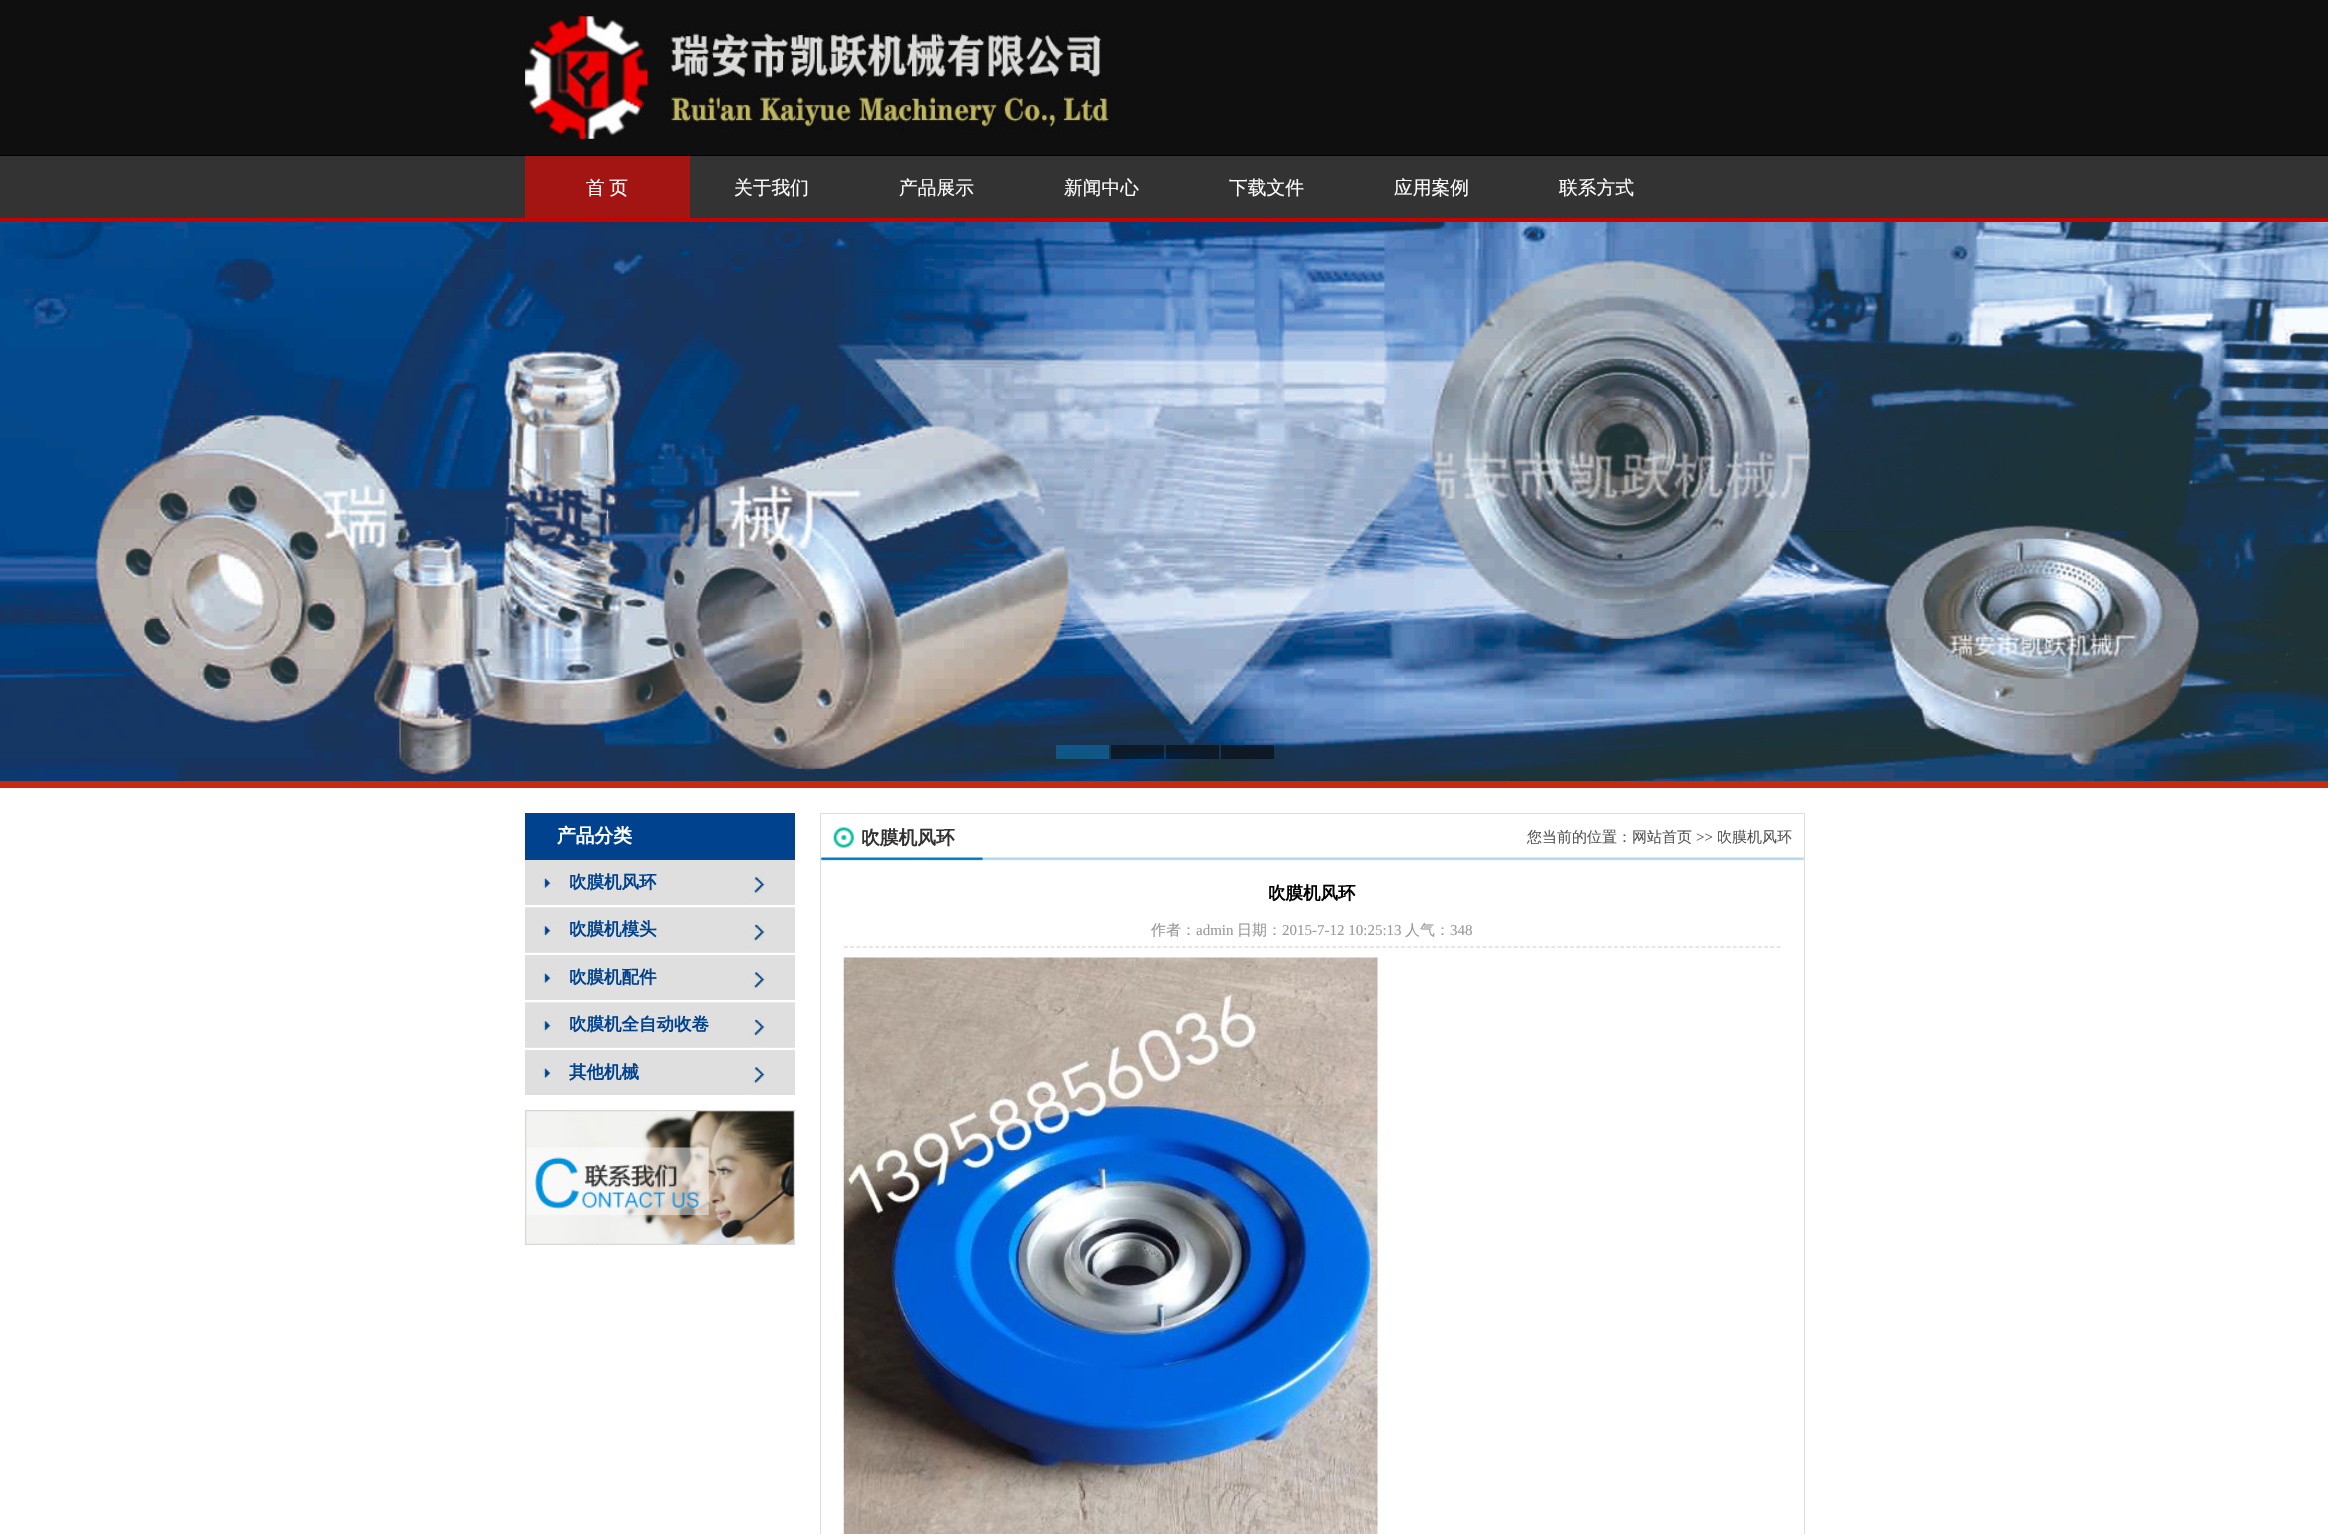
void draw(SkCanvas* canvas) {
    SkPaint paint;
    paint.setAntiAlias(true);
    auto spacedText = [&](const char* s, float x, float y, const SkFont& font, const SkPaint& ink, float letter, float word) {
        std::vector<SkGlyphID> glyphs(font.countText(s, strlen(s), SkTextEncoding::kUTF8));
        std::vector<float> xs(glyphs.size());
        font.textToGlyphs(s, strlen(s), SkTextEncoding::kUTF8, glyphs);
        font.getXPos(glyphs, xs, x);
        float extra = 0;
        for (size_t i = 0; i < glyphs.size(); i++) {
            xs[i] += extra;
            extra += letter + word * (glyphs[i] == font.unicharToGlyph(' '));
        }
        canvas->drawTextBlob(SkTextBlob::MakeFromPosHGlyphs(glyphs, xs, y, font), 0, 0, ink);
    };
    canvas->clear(0xFFFFFFFF);
    paint.setColor(0xFF0F0F0F);
    canvas->drawRect(SkRect::MakeXYWH(0, 0, 2328, 155), paint);
    canvas->drawImageRect(SkImages::DeferredFromEncodedData(SkData::MakeFromFileName("img1.png")), SkRect::MakeXYWH(525, 10, 586, 130), SkSamplingOptions());
    paint.setColor(0xFF333333);
    canvas->drawRect(SkRect::MakeXYWH(0, 156, 2328, 62), paint);
    paint.setColor(0xFF000000);
    canvas->drawRect(SkRect::MakeXYWH(0, 155, 2328, 1), paint);
    paint.setColor(0xFFA21513);
    canvas->drawRect(SkRect::MakeXYWH(525, 156, 165, 62), paint);
    SkFont font1(fontMgr->matchFamilyStyle("WenQuanYi Zen Hei", SkFontStyle(500, SkFontStyle::kNormal_Width, SkFontStyle::kUpright_Slant)), 18.75f);
    font1.setSubpixel(true);
    paint.setColor(0xFFFFFFFF);
    spacedText("首 页", 586, 194, font1, paint, 0, -1);
    canvas->drawString("关于我们", 734, 194, font1, paint);
    canvas->drawString("产品展示", 899, 194, font1, paint);
    canvas->drawString("新闻中心", 1064, 194, font1, paint);
    canvas->drawString("下载文件", 1229, 194, font1, paint);
    canvas->drawString("应用案例", 1394, 194, font1, paint);
    canvas->drawString("联系方式", 1559, 194, font1, paint);
    paint.setColor(0xFFC50400);
    canvas->drawRect(SkRect::MakeXYWH(0, 218, 2328, 4), paint);
    paint.setColor(0xFFC82A0D);
    canvas->drawRect(SkRect::MakeXYWH(0, 781, 2328, 7), paint);
    canvas->drawImageRect(SkImages::DeferredFromEncodedData(SkData::MakeFromFileName("img2.png")), SkRect::MakeXYWH(0, 222, 2328, 560), SkSamplingOptions());
    paint.setColor(0x80047AC2);
    canvas->drawRect(SkRect::MakeXYWH(1056, 745, 53, 14), paint);
    paint.setColor(0x80000000);
    canvas->drawRect(SkRect::MakeXYWH(1111, 745, 53, 14), paint);
    canvas->drawRect(SkRect::MakeXYWH(1166, 745, 53, 14), paint);
    canvas->drawRect(SkRect::MakeXYWH(1221, 745, 53, 14), paint);
    paint.setColor(0xFF00428E);
    canvas->drawRect(SkRect::MakeXYWH(525, 813, 270, 47), paint);
    SkFont font2(fontMgr->matchFamilyStyle("WenQuanYi Zen Hei", SkFontStyle::Bold()), 18.75f);
    font2.setSubpixel(true);
    paint.setColor(0xFFFFFFFF);
    canvas->drawString("产品分类", 557, 842, font2, paint);
    canvas->drawImageRect(SkImages::DeferredFromEncodedData(SkData::MakeFromFileName("img3.png")), SkRect::MakeXYWH(525, 860, 270, 45), SkSamplingOptions());
    SkFont font3(fontMgr->matchFamilyStyle("WenQuanYi Zen Hei", SkFontStyle::Bold()), 17.5f);
    font3.setSubpixel(true);
    paint.setColor(0xFF00428E);
    canvas->drawString("吹膜机风环", 569, 888, font3, paint);
    canvas->drawImageRect(SkImages::DeferredFromEncodedData(SkData::MakeFromFileName("img4.png")), SkRect::MakeXYWH(525, 907, 270, 46), SkSamplingOptions());
    canvas->drawImageRect(SkImages::DeferredFromEncodedData(SkData::MakeFromFileName("img5.png")), SkRect::MakeXYWH(525, 907, 270, 45), SkSamplingOptions());
    canvas->drawString("吹膜机模头", 569, 935, font3, paint);
    canvas->drawImageRect(SkImages::DeferredFromEncodedData(SkData::MakeFromFileName("img3.png")), SkRect::MakeXYWH(525, 955, 270, 45), SkSamplingOptions());
    canvas->drawString("吹膜机配件", 569, 983, font3, paint);
    canvas->drawImageRect(SkImages::DeferredFromEncodedData(SkData::MakeFromFileName("img4.png")), SkRect::MakeXYWH(525, 1002, 270, 46), SkSamplingOptions());
    canvas->drawImageRect(SkImages::DeferredFromEncodedData(SkData::MakeFromFileName("img5.png")), SkRect::MakeXYWH(525, 1002, 270, 45), SkSamplingOptions());
    canvas->drawString("吹膜机全自动收卷", 569, 1030, font3, paint);
    canvas->drawImageRect(SkImages::DeferredFromEncodedData(SkData::MakeFromFileName("img3.png")), SkRect::MakeXYWH(525, 1050, 270, 45), SkSamplingOptions());
    canvas->drawString("其他机械", 569, 1078, font3, paint);
    canvas->drawImageRect(SkImages::DeferredFromEncodedData(SkData::MakeFromFileName("img6.png")), SkRect::MakeXYWH(525, 1110, 270, 135), SkSamplingOptions());
    paint.setStyle(SkPaint::kStroke_Style);
    paint.setStrokeWidth(1);
    paint.setColor(0xFFDDDDDD);
    canvas->drawRect(SkRect::MakeXYWH(820.5f, 813.5f, 984, 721), paint);
    canvas->drawImageRect(SkImages::DeferredFromEncodedData(SkData::MakeFromFileName("img7.png")), SkRect::MakeXYWH(821, 857, 983, 4), SkSamplingOptions());
    canvas->drawImageRect(SkImages::DeferredFromEncodedData(SkData::MakeFromFileName("img8.png")), SkRect::MakeXYWH(832, 826, 22, 22), SkSamplingOptions());
    paint.setStyle(SkPaint::kFill_Style);
    paint.setColor(0xFF333333);
    canvas->drawString("吹膜机风环", 861, 844, font2, paint);
    SkFont font4(fontMgr->matchFamilyStyle("WenQuanYi Zen Hei", SkFontStyle(500, SkFontStyle::kNormal_Width, SkFontStyle::kUpright_Slant)), 15);
    font4.setSubpixel(true);
    paint.setColor(0xFF555555);
    canvas->drawString("您当前的位置：网站首页", 1527, 842, font4, paint);
    SkFont font5(fontMgr->matchFamilyStyle("Liberation Serif", SkFontStyle::Normal()), 15);
    font5.setSubpixel(true);
    canvas->drawString(">>", 1696, 842, font5, paint);
    canvas->drawString("吹膜机风环", 1717, 842, font4, paint);
    paint.setColor(0xFF000000);
    canvas->drawString("吹膜机风环", 1268, 899, font3, paint);
    paint.setStyle(SkPaint::kStroke_Style);
    paint.setStrokeWidth(1.2f);
    paint.setColor(0xFFCCCCCC);
    paint.setPathEffect(SkDashPathEffect::Make({{3.75f, 2.51f}}, 0));
    canvas->drawPath(SkPathBuilder().moveTo(844, 947).lineTo(1781, 947).detach(), paint);
    paint.setPathEffect(nullptr);
    paint.setStyle(SkPaint::kFill_Style);
    paint.setColor(0xFF999999);
    canvas->drawString("作者：", 1151, 935, font4, paint);
    canvas->drawString("admin", 1196, 935, font5, paint);
    canvas->drawString("日期：", 1237, 935, font4, paint);
    canvas->drawString("2015-7-12 10:25:13", 1282, 935, font5, paint);
    canvas->drawString("人气：", 1405, 935, font4, paint);
    canvas->drawString("348", 1450, 935, font5, paint);
    canvas->drawImageRect(SkImages::DeferredFromEncodedData(SkData::MakeFromFileName("img9.png")), SkRect::MakeXYWH(843, 957, 535, 577), SkSamplingOptions());
}
